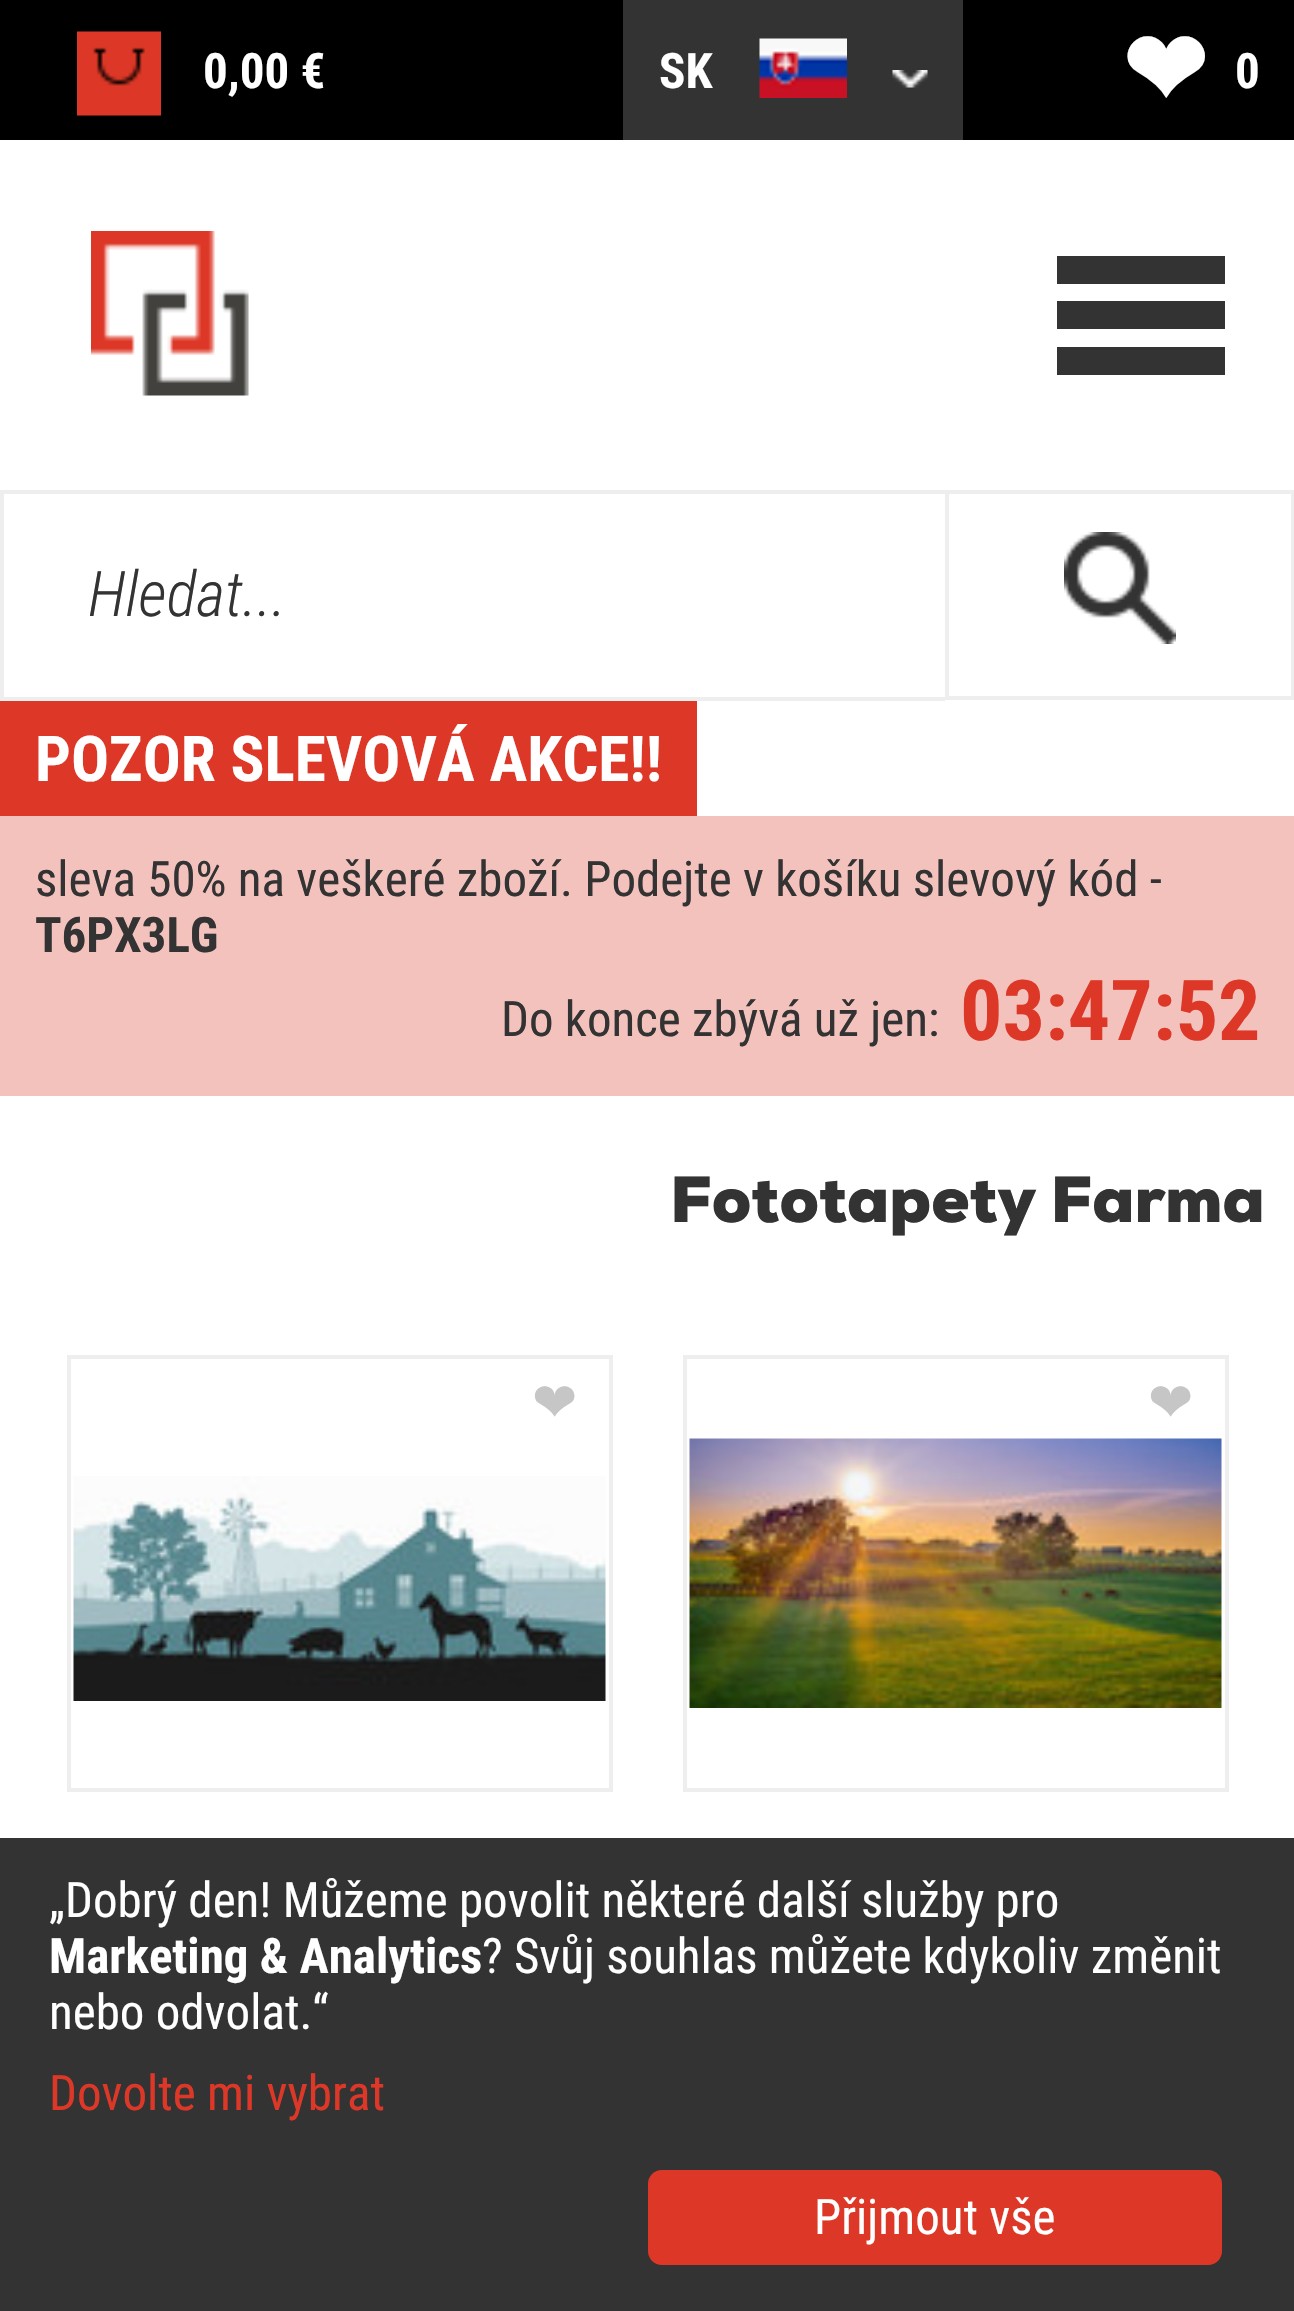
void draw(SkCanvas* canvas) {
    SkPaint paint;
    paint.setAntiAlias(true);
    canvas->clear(0xFFFFFFFF);
    paint.setColor(0xFF000000);
    canvas->drawRect(SkRect::MakeXYWH(0, 0, 1294, 140), paint);
    canvas->drawImageRect(SkImages::DeferredFromEncodedData(SkData::MakeFromFileName("img1.png")), SkRect::MakeXYWH(77, 31, 84, 85), SkSamplingOptions());
    SkFont font1(fontMgr->matchFamilyStyle("Roboto Condensed", SkFontStyle::Bold()), 49);
    font1.setSubpixel(true);
    paint.setColor(0xFFFFFFFF);
    canvas->drawString("0,00 €", 203, 88, font1, paint);
    paint.setColor(0xFF333333);
    canvas->drawRect(SkRect::MakeXYWH(623, 0, 340, 140), paint);
    paint.setColor(0xFFFFFFFF);
    canvas->drawString("SK", 659, 88, font1, paint);
    canvas->drawImageRect(SkImages::DeferredFromEncodedData(SkData::MakeFromFileName("img2.png")), SkRect::MakeXYWH(759, 38, 88, 60), SkSamplingOptions());
    canvas->drawImageRect(SkImages::DeferredFromEncodedData(SkData::MakeFromFileName("img3.png")), SkRect::MakeXYWH(892, 70, 36, 18), SkSamplingOptions());
    SkFont font2(fontMgr->matchFamilyStyle("DejaVu Sans", SkFontStyle::Bold()), 102);
    font2.setSubpixel(true);
    canvas->drawString("❤", 1122, 105, font2, paint);
    canvas->drawString("0", 1235, 88, font1, paint);
    canvas->drawImageRect(SkImages::DeferredFromEncodedData(SkData::MakeFromFileName("img4.png")), SkRect::MakeXYWH(91, 231, 158, 165), SkSamplingOptions());
    paint.setColor(0xFF333333);
    canvas->drawRect(SkRect::MakeXYWH(1057, 256, 168, 28), paint);
    canvas->drawRect(SkRect::MakeXYWH(1057, 301, 168, 28), paint);
    canvas->drawRect(SkRect::MakeXYWH(1057, 347, 168, 28), paint);
    paint.setColor(0xFFEEEEEE);
    canvas->drawRect(SkRect::MakeXYWH(0, 490, 945, 4), paint);
    canvas->drawRect(SkRect::MakeXYWH(0, 697, 945, 4), paint);
    canvas->drawRect(SkRect::MakeXYWH(0, 490, 4, 210), paint);
    SkFont font3(fontMgr->matchFamilyStyle("Roboto Condensed", SkFontStyle(300, SkFontStyle::kNormal_Width, SkFontStyle::kItalic_Slant)), 63);
    font3.setSubpixel(true);
    paint.setColor(0xFF333333);
    canvas->drawString("Hledat...", 88, 616, font3, paint);
    paint.setStyle(SkPaint::kStroke_Style);
    paint.setStrokeWidth(4);
    paint.setColor(0xFFEEEEEE);
    canvas->drawRect(SkRect::MakeXYWH(947, 492, 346, 206), paint);
    canvas->drawImageRect(SkImages::DeferredFromEncodedData(SkData::MakeFromFileName("img5.png")), SkRect::MakeXYWH(1064, 532, 112, 112), SkSamplingOptions());
    paint.setStyle(SkPaint::kFill_Style);
    paint.setColor(0xFFDD3827);
    canvas->drawRect(SkRect::MakeXYWH(0, 701, 697, 115), paint);
    SkFont font4(fontMgr->matchFamilyStyle("Roboto Condensed", SkFontStyle::Bold()), 63.25f);
    font4.setSubpixel(true);
    paint.setColor(0xFFFFFFFF);
    canvas->drawString("POZOR SLEVOVÁ AKCE!!", 35, 781, font4, paint);
    paint.setColor(0xFFF3C2BD);
    canvas->drawRect(SkRect::MakeXYWH(0, 816, 1294, 280), paint);
    SkFont font5(fontMgr->matchFamilyStyle("Roboto Condensed", SkFontStyle::Normal()), 49);
    font5.setSubpixel(true);
    paint.setColor(0xFF333333);
    canvas->drawString("sleva 50% na veškeré zboží. Podejte v košíku slevový kód -", 35, 896, font5, paint);
    canvas->drawString("T6PX3LG", 35, 952, font1, paint);
    canvas->drawString("Do konce zbývá už jen:", 501, 1036, font5, paint);
    SkFont font6(fontMgr->matchFamilyStyle("Roboto Condensed", SkFontStyle::Bold()), 84);
    font6.setSubpixel(true);
    paint.setColor(0xFFDD3827);
    canvas->drawString("03:47:52", 960, 1040, font6, paint);
    SkFont font7(fontMgr->matchFamilyStyle("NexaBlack", SkFontStyle(900, SkFontStyle::kNormal_Width, SkFontStyle::kUpright_Slant)), 63.25f);
    font7.setSubpixel(true);
    paint.setColor(0xFF333333);
    canvas->drawString("Fototapety Farma", 670, 1222, font7, paint);
    paint.setStyle(SkPaint::kStroke_Style);
    paint.setColor(0xFFEEEEEE);
    canvas->drawRect(SkRect::MakeXYWH(69, 1357, 542, 433), paint);
    canvas->drawImageRect(SkImages::DeferredFromEncodedData(SkData::MakeFromFileName("img6.png")), SkRect::MakeXYWH(73, 1476, 533, 225), SkSamplingOptions());
    SkFont font8(fontMgr->matchFamilyStyle("DejaVu Sans", SkFontStyle::Normal()), 54);
    font8.setSubpixel(true);
    paint.setStyle(SkPaint::kFill_Style);
    paint.setColor(0xFFC6C6C6);
    canvas->drawString("❤", 532, 1421, font8, paint);
    paint.setStyle(SkPaint::kStroke_Style);
    paint.setColor(0xFFEEEEEE);
    canvas->drawRect(SkRect::MakeXYWH(685, 1357, 542, 433), paint);
    canvas->drawImageRect(SkImages::DeferredFromEncodedData(SkData::MakeFromFileName("img7.png")), SkRect::MakeXYWH(689, 1438, 533, 270), SkSamplingOptions());
    paint.setStyle(SkPaint::kFill_Style);
    paint.setColor(0xFFC6C6C6);
    canvas->drawString("❤", 1148, 1421, font8, paint);
    paint.setColor(0xFF333333);
    canvas->drawRect(SkRect::MakeXYWH(0, 1838, 1294, 473), paint);
    paint.setColor(0xFFFFFFFF);
    canvas->drawString("„Dobrý den! Můžeme povolit některé další služby pro", 49, 1917, font5, paint);
    canvas->drawString("Marketing & Analytics", 49, 1973, font1, paint);
    canvas->drawString("? Svůj souhlas můžete kdykoliv změnit", 482, 1973, font5, paint);
    canvas->drawString("nebo odvolat.“", 49, 2029, font5, paint);
    paint.setColor(0xFFDD3827);
    canvas->drawString("Dovolte mi vybrat", 49, 2110, font5, paint);
    canvas->drawRoundRect(SkRect::MakeXYWH(648, 2170, 574, 95), 14, 14, paint);
    paint.setColor(0xFFFFFFFF);
    canvas->drawString("Přijmout vše", 814, 2234, font5, paint);
}
